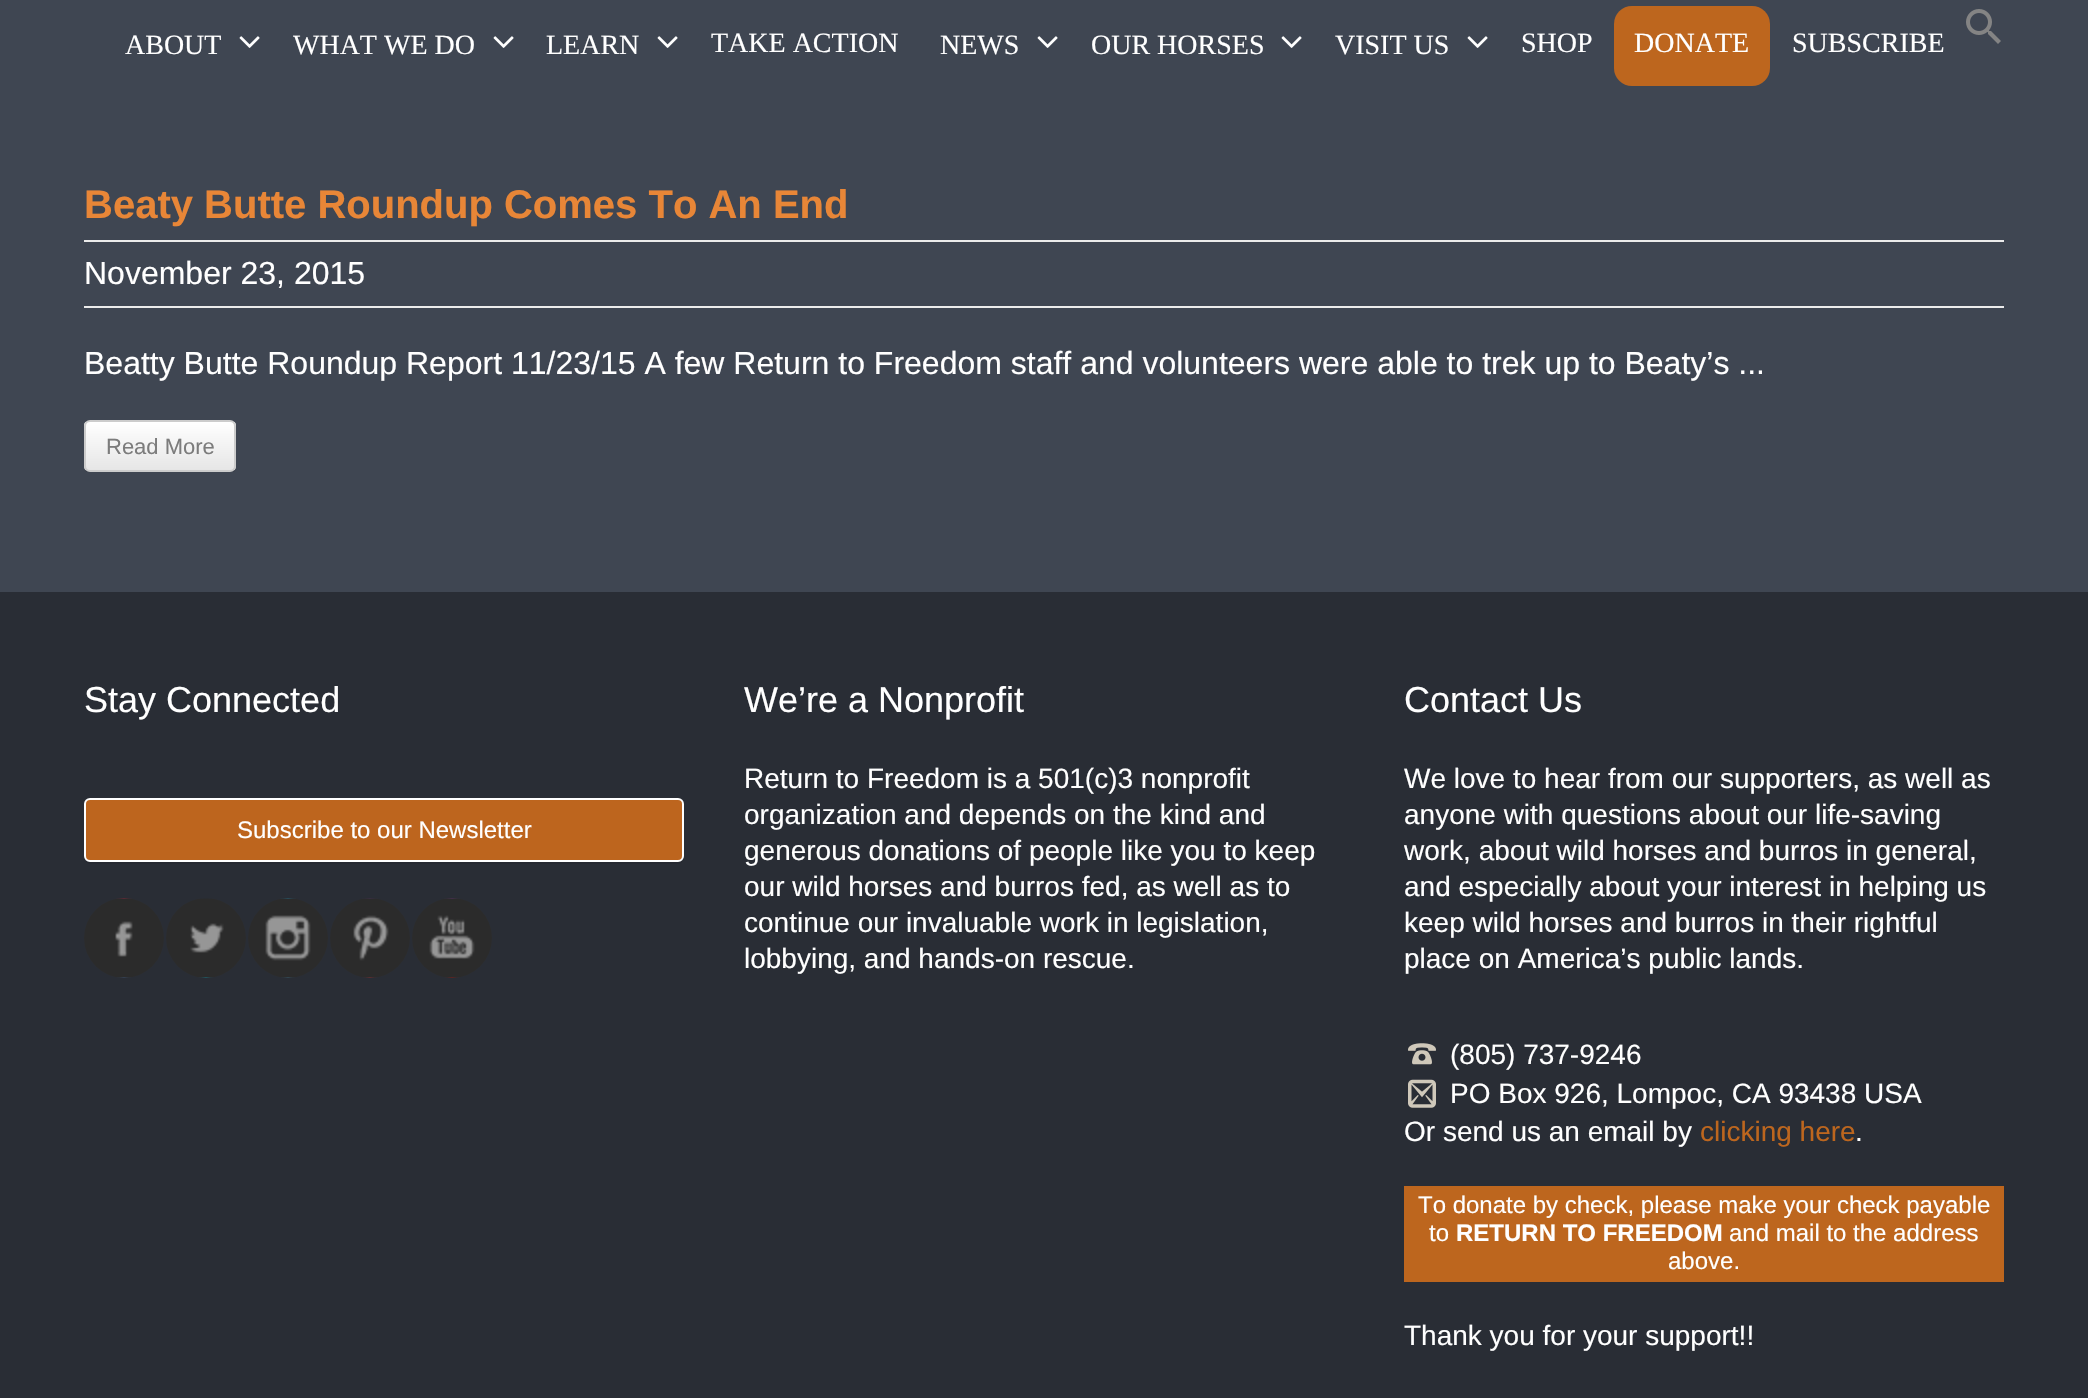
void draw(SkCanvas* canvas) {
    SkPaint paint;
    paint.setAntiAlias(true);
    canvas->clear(0xFF3F4652);
    SkFont font1(fontMgr->matchFamilyStyle("Liberation Serif", SkFontStyle::Normal()), 28);
    font1.setSubpixel(true);
    paint.setColor(0xFFFFFFFF);
    canvas->drawString("ABOUT", 125, 54, font1, paint);
    canvas->drawImageRect(SkImages::DeferredFromEncodedData(SkData::MakeFromFileName("img1.png")), SkRect::MakeXYWH(239, 36, 21, 12), SkSamplingOptions());
    canvas->drawString("WHAT WE DO", 293, 54, font1, paint);
    canvas->drawImageRect(SkImages::DeferredFromEncodedData(SkData::MakeFromFileName("img1.png")), SkRect::MakeXYWH(493, 36, 21, 12), SkSamplingOptions());
    canvas->drawString("LEARN", 546, 54, font1, paint);
    canvas->drawImageRect(SkImages::DeferredFromEncodedData(SkData::MakeFromFileName("img1.png")), SkRect::MakeXYWH(657, 36, 21, 12), SkSamplingOptions());
    canvas->drawString("TAKE ACTION", 711, 52, font1, paint);
    canvas->drawString("NEWS", 940, 54, font1, paint);
    canvas->drawImageRect(SkImages::DeferredFromEncodedData(SkData::MakeFromFileName("img1.png")), SkRect::MakeXYWH(1037, 36, 21, 12), SkSamplingOptions());
    canvas->drawString("OUR HORSES", 1091, 54, font1, paint);
    canvas->drawImageRect(SkImages::DeferredFromEncodedData(SkData::MakeFromFileName("img1.png")), SkRect::MakeXYWH(1281, 36, 21, 12), SkSamplingOptions());
    canvas->drawString("VISIT US", 1335, 54, font1, paint);
    canvas->drawImageRect(SkImages::DeferredFromEncodedData(SkData::MakeFromFileName("img1.png")), SkRect::MakeXYWH(1467, 36, 21, 12), SkSamplingOptions());
    canvas->drawString("SHOP", 1521, 52, font1, paint);
    paint.setColor(0xFFBD661E);
    canvas->drawRoundRect(SkRect::MakeXYWH(1614, 6, 156, 80), 18, 18, paint);
    paint.setColor(0xFFFFFFFF);
    canvas->drawString("DONATE", 1634, 52, font1, paint);
    canvas->drawString("SUBSCRIBE", 1792, 52, font1, paint);
    canvas->drawImageRect(SkImages::DeferredFromEncodedData(SkData::MakeFromFileName("img2.png")), SkRect::MakeXYWH(1966, 9, 35, 35), SkSamplingOptions());
    SkFont font2(fontMgr->matchFamilyStyle("Liberation Sans", SkFontStyle::Bold()), 40);
    font2.setSubpixel(true);
    paint.setColor(0xFFE88637);
    canvas->drawString("Beaty Butte Roundup Comes To An End", 84, 218, font2, paint);
    paint.setColor(0xFFEBEBEB);
    canvas->drawRect(SkRect::MakeXYWH(84, 240, 1920, 2), paint);
    canvas->drawRect(SkRect::MakeXYWH(84, 306, 1920, 2), paint);
    SkFont font3(fontMgr->matchFamilyStyle("Liberation Sans", SkFontStyle::Normal()), 32);
    font3.setSubpixel(true);
    paint.setColor(0xFFFFFFFF);
    canvas->drawString("November 23, 2015", 84, 284, font3, paint);
    canvas->drawString("Beatty Butte Roundup Report 11/23/15 A few Return to Freedom staff and volunteers were able to trek up to Beaty’s ...", 84, 374, font3, paint);
    canvas->save();
    canvas->clipRect(SkRect::MakeXYWH(84, 180, 1920, 292));
    paint.setColor(0xFF3A404B);
    canvas->drawPath(SkPathBuilder().moveTo(84, 466).lineTo(84, 468).cubicTo(84, 471, 87, 474, 90, 474).lineTo(230, 474).cubicTo(233, 474, 236, 471, 236, 468).lineTo(236, 466).cubicTo(236, 469, 233, 472, 230, 472).lineTo(90, 472).cubicTo(87, 472, 84, 469, 84, 466).close().detach(), paint);
    canvas->restore();
    canvas->save();
    canvas->clipPath(SkPathBuilder().moveTo(90, 420).lineTo(230, 420).cubicTo(233.5f, 420, 236, 422.5f, 236, 426).lineTo(236, 466).cubicTo(236, 469.5f, 233.5f, 472, 230, 472).lineTo(90, 472).cubicTo(86.5f, 472, 84, 469.5f, 84, 466).lineTo(84, 426).cubicTo(84, 422.5f, 86.5f, 420, 90, 420).close().detach(), true);
    {
        const SkColor colors[] = {0xFFFFFFFF, 0xFFE6E6E6};
        const float stops[] = {0, 1};
        const SkPoint ends[] = {{160, 422}, {160, 470}};
        paint.setShader(SkGradientShader::MakeLinear(ends, colors, stops, 2, SkTileMode::kClamp));
        paint.setAlpha(255);
    }
    canvas->drawRect(SkRect::MakeXYWH(84, 422, 152, 48), paint);
    canvas->restore();
    paint.setStyle(SkPaint::kStroke_Style);
    paint.setStrokeWidth(2);
    paint.setShader(nullptr);
    paint.setColor(0xFFCCCCCC);
    canvas->drawRoundRect(SkRect::MakeXYWH(85, 421, 150, 50), 5, 5, paint);
    SkFont font4(fontMgr->matchFamilyStyle("Liberation Sans", SkFontStyle::Normal()), 22);
    font4.setSubpixel(true);
    paint.setStyle(SkPaint::kFill_Style);
    paint.setColor(0xFF7C7C7C);
    canvas->drawString("Read More", 106, 454, font4, paint);
    paint.setColor(0xFF292D35);
    canvas->drawRect(SkRect::MakeXYWH(0, 592, 2088, 806), paint);
    SkFont font5(fontMgr->matchFamilyStyle("Liberation Sans", SkFontStyle::Normal()), 36);
    font5.setSubpixel(true);
    paint.setColor(0xFFFFFFFF);
    canvas->drawString("Stay Connected", 84, 712, font5, paint);
    paint.setColor(0xFF262931);
    canvas->drawPath(SkPathBuilder().moveTo(84, 856).lineTo(84, 858).cubicTo(84, 861, 87, 864, 90, 864).lineTo(678, 864).cubicTo(681, 864, 684, 861, 684, 858).lineTo(684, 856).cubicTo(684, 859, 681, 862, 678, 862).lineTo(90, 862).cubicTo(87, 862, 84, 859, 84, 856).close().detach(), paint);
    paint.setColor(0xFFBD651E);
    canvas->drawRoundRect(SkRect::MakeXYWH(85, 799, 598, 62), 5, 5, paint);
    paint.setStyle(SkPaint::kStroke_Style);
    paint.setColor(0xFFFFFFFF);
    canvas->drawRoundRect(SkRect::MakeXYWH(85, 799, 598, 62), 5, 5, paint);
    SkFont font6(fontMgr->matchFamilyStyle("Liberation Sans", SkFontStyle::Normal()), 24);
    font6.setSubpixel(true);
    paint.setStyle(SkPaint::kFill_Style);
    canvas->drawString("Subscribe to our Newsletter", 237, 838, font6, paint);
    paint.setColor(0xFF2B2B2B);
    canvas->drawCircle(124, 938, 40, paint);
    canvas->drawImageRect(SkImages::DeferredFromEncodedData(SkData::MakeFromFileName("img3.png")), SkRect::MakeXYWH(115, 898, 18, 80), SkSamplingOptions());
    canvas->drawCircle(206, 938, 40, paint);
    canvas->drawImageRect(SkImages::DeferredFromEncodedData(SkData::MakeFromFileName("img4.png")), SkRect::MakeXYWH(190, 898, 34, 80), SkSamplingOptions());
    canvas->drawCircle(288, 938, 40, paint);
    canvas->drawImageRect(SkImages::DeferredFromEncodedData(SkData::MakeFromFileName("img5.png")), SkRect::MakeXYWH(265, 898, 46, 80), SkSamplingOptions());
    canvas->drawCircle(370, 938, 40, paint);
    canvas->drawImageRect(SkImages::DeferredFromEncodedData(SkData::MakeFromFileName("img6.png")), SkRect::MakeXYWH(353, 898, 36, 80), SkSamplingOptions());
    canvas->drawCircle(452, 938, 40, paint);
    canvas->drawImageRect(SkImages::DeferredFromEncodedData(SkData::MakeFromFileName("img7.png")), SkRect::MakeXYWH(429, 898, 46, 80), SkSamplingOptions());
    paint.setColor(0xFFFFFFFF);
    canvas->drawString("We’re a Nonprofit", 744, 712, font5, paint);
    SkFont font7(fontMgr->matchFamilyStyle("Liberation Sans", SkFontStyle::Normal()), 28);
    font7.setSubpixel(true);
    canvas->drawString("Return to Freedom is a 501(c)3 nonprofit", 744, 788, font7, paint);
    canvas->drawString("organization and depends on the kind and", 744, 824, font7, paint);
    canvas->drawString("generous donations of people like you to keep", 744, 860, font7, paint);
    canvas->drawString("our wild horses and burros fed, as well as to", 744, 896, font7, paint);
    canvas->drawString("continue our invaluable work in legislation,", 744, 932, font7, paint);
    canvas->drawString("lobbying, and hands-on rescue.", 744, 968, font7, paint);
    canvas->drawString("Contact Us", 1404, 712, font5, paint);
    canvas->drawString("We love to hear from our supporters, as well as", 1404, 788, font7, paint);
    canvas->drawString("anyone with questions about our life-saving", 1404, 824, font7, paint);
    canvas->drawString("work, about wild horses and burros in general,", 1404, 860, font7, paint);
    canvas->drawString("and especially about your interest in helping us", 1404, 896, font7, paint);
    canvas->drawString("keep wild horses and burros in their rightful", 1404, 932, font7, paint);
    canvas->drawString("place on America’s public lands.", 1404, 968, font7, paint);
    canvas->drawImageRect(SkImages::DeferredFromEncodedData(SkData::MakeFromFileName("img8.png")), SkRect::MakeXYWH(1408, 1043, 28, 22), SkSamplingOptions());
    canvas->drawString("(805) 737-9246", 1450, 1064, font7, paint);
    canvas->drawImageRect(SkImages::DeferredFromEncodedData(SkData::MakeFromFileName("img9.png")), SkRect::MakeXYWH(1408, 1079, 28, 29), SkSamplingOptions());
    canvas->drawString("PO Box 926, Lompoc, CA 93438 USA", 1450, 1103, font7, paint);
    canvas->drawString("Or send us an email by", 1404, 1141, font7, paint);
    paint.setColor(0xFFBD661E);
    canvas->drawString("clicking here", 1700, 1141, font7, paint);
    paint.setColor(0xFFFFFFFF);
    canvas->drawString(".", 1855, 1141, font7, paint);
    paint.setColor(0xFFBD661E);
    canvas->drawRect(SkRect::MakeXYWH(1404, 1186, 600, 96), paint);
    paint.setColor(0xFFFFFFFF);
    canvas->drawString("To donate by check, please make your check payable", 1418, 1213, font6, paint);
    canvas->drawString("to", 1429, 1241, font6, paint);
    SkFont font8(fontMgr->matchFamilyStyle("Liberation Sans", SkFontStyle::Bold()), 24);
    font8.setSubpixel(true);
    canvas->drawString("RETURN TO FREEDOM", 1456, 1241, font8, paint);
    canvas->drawString("and mail to the address", 1729, 1241, font6, paint);
    canvas->drawString("above.", 1668, 1269, font6, paint);
    canvas->drawString("Thank you for your support!!", 1404, 1345, font7, paint);
}
